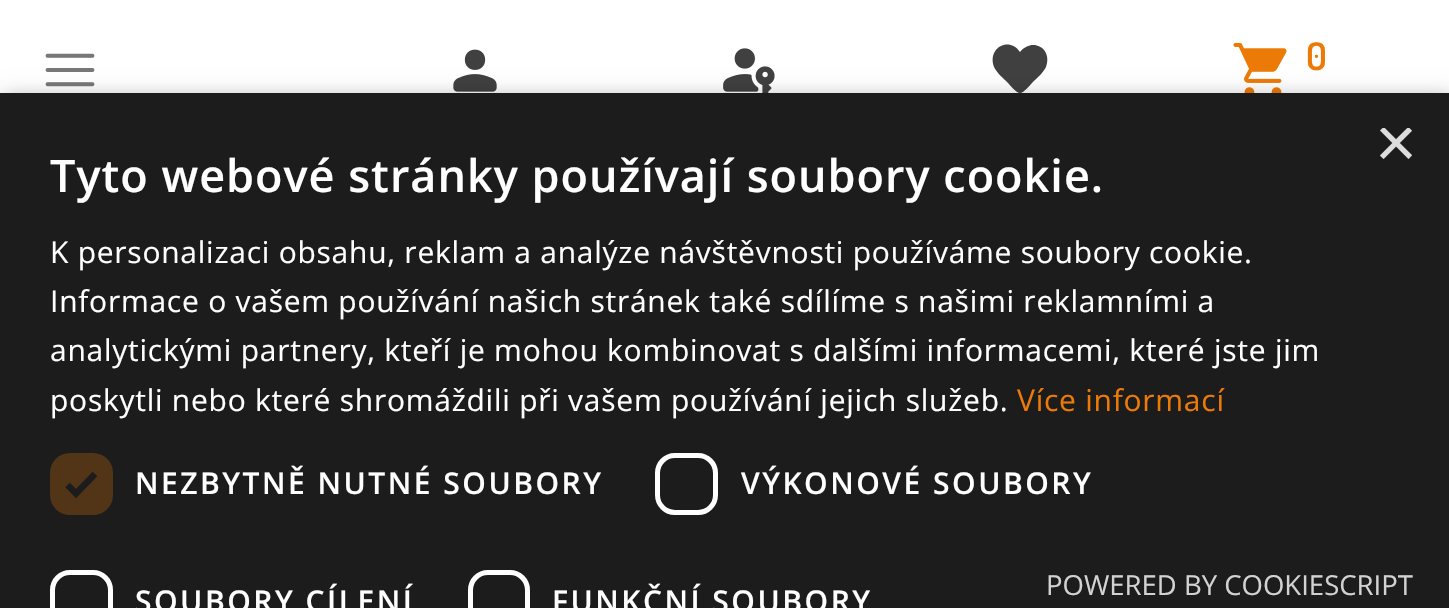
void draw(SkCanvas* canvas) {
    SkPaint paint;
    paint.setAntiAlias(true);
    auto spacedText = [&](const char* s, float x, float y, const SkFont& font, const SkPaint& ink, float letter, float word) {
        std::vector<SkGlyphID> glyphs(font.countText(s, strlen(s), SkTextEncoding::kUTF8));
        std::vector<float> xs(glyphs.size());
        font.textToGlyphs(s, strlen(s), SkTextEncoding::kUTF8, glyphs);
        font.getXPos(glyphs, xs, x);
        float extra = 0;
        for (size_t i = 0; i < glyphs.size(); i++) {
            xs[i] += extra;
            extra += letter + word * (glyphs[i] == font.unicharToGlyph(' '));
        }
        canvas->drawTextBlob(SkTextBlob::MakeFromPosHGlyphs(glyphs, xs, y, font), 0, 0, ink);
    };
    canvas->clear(0xFFFFFFFF);
    canvas->drawImageRect(SkImages::DeferredFromEncodedData(SkData::MakeFromFileName("img1.png")), SkRect::MakeXYWH(45, 53, 50, 34), SkSamplingOptions());
    canvas->drawImageRect(SkImages::DeferredFromEncodedData(SkData::MakeFromFileName("img2.png")), SkRect::MakeXYWH(453, 49, 44, 43), SkSamplingOptions());
    canvas->drawImageRect(SkImages::DeferredFromEncodedData(SkData::MakeFromFileName("img3.png")), SkRect::MakeXYWH(723, 48, 52, 45), SkSamplingOptions());
    paint.setColor(0xFF404040);
    canvas->drawPath(SkPathBuilder().moveTo(1020, 93).cubicTo(1016, 93, 1010, 85, 1008, 83).cubicTo(1003, 78, 997, 73, 994, 67).cubicTo(987, 48, 1009, 36, 1020, 52).cubicTo(1032, 37, 1053, 48, 1046, 67).cubicTo(1043, 73, 1037, 78, 1032, 83).cubicTo(1030, 85, 1024, 93, 1020, 93).close().detach(), paint);
    canvas->drawImageRect(SkImages::DeferredFromEncodedData(SkData::MakeFromFileName("img4.png")), SkRect::MakeXYWH(1233, 42, 54, 51), SkSamplingOptions());
    SkFont font1(fontMgr->matchFamilyStyle("Dosis", SkFontStyle(600, SkFontStyle::kNormal_Width, SkFontStyle::kUpright_Slant)), 38);
    font1.setSubpixel(true);
    paint.setColor(0xFFEC7A07);
    canvas->drawString("0", 1306, 70, font1, paint);
    paint.setColor(0x59000000);
    paint.setMaskFilter(SkMaskFilter::MakeBlur(kNormal_SkBlurStyle, 10));
    canvas->drawRect(SkRect::MakeXYWH(3, 98, 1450, 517), paint);
    paint.setMaskFilter(nullptr);
    paint.setColor(0xFF1C1C1C);
    canvas->drawRect(SkRect::MakeXYWH(0, 93, 1449, 515), paint);
    canvas->save();
    canvas->clipRect(SkRect::MakeXYWH(1375, 128, 38, 37));
    SkFont font2(fontMgr->matchFamilyStyle("Liberation Sans", SkFontStyle::Normal()), 72);
    font2.setSubpixel(true);
    paint.setColor(0xFFDDDDDD);
    canvas->drawString("×", 1375, 167, font2, paint);
    canvas->restore();
    SkFont font3(fontMgr->matchFamilyStyle("Open Sans", SkFontStyle(600, SkFontStyle::kNormal_Width, SkFontStyle::kUpright_Slant)), 45);
    font3.setSubpixel(true);
    paint.setColor(0xFFFFFFFF);
    spacedText("Tyto webové stránky používají soubory cookie.", 50, 192, font3, paint, 1, 0);
    SkFont font4(fontMgr->matchFamilyStyle("Open Sans", SkFontStyle::Normal()), 30);
    font4.setSubpixel(true);
    spacedText("K personalizaci obsahu, reklam a analýze návštěvnosti používáme soubory cookie.", 50, 263, font4, paint, 0.75f, 0);
    spacedText("Informace o vašem používání našich stránek také sdílíme s našimi reklamními a", 50, 312, font4, paint, 0.75f, 0);
    spacedText("analytickými partnery, kteří je mohou kombinovat s dalšími informacemi, které jste jim", 50, 361, font4, paint, 0.75f, 0);
    spacedText("poskytli nebo které shromáždili při vašem používání jejich služeb.", 50, 411, font4, paint, 0.75f, 0);
    paint.setColor(0xFFEC7A07);
    spacedText("Více informací", 1017, 411, font4, paint, 0.75f, 0);
    paint.setColor(0xFF523417);
    canvas->drawRoundRect(SkRect::MakeXYWH(50, 453, 63, 62), 20, 20, paint);
    paint.setStyle(SkPaint::kStroke_Style);
    paint.setStrokeWidth(6.6f);
    paint.setColor(0xFF1C1C1C);
    canvas->drawPath(SkPathBuilder().moveTo(67.5f, 485).lineTo(76, 493.5f).lineTo(95, 474).detach(), paint);
    SkFont font5(fontMgr->matchFamilyStyle("Open Sans", SkFontStyle(600, SkFontStyle::kNormal_Width, SkFontStyle::kUpright_Slant)), 30);
    font5.setSubpixel(true);
    paint.setStyle(SkPaint::kFill_Style);
    paint.setColor(0xFFFFFFFF);
    spacedText("NEZBYTNĚ NUTNÉ SOUBORY", 135, 494, font5, paint, 2.5f, 0);
    paint.setStyle(SkPaint::kStroke_Style);
    paint.setStrokeWidth(5);
    canvas->drawRoundRect(SkRect::MakeXYWH(657.5f, 455.5f, 58, 57), 17.5f, 17.5f, paint);
    paint.setStyle(SkPaint::kFill_Style);
    spacedText("VÝKONOVÉ SOUBORY", 741, 494, font5, paint, 2.5f, 0);
    paint.setStyle(SkPaint::kStroke_Style);
    canvas->drawRoundRect(SkRect::MakeXYWH(52.5f, 572.5f, 58, 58), 17.5f, 17.5f, paint);
    paint.setStyle(SkPaint::kFill_Style);
    spacedText("SOUBORY CÍLENÍ", 135, 612, font5, paint, 2.5f, 0);
    paint.setStyle(SkPaint::kStroke_Style);
    canvas->drawRoundRect(SkRect::MakeXYWH(470.5f, 572.5f, 57, 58), 17.5f, 17.5f, paint);
    paint.setStyle(SkPaint::kFill_Style);
    spacedText("FUNKČNÍ SOUBORY", 552, 612, font5, paint, 2.5f, 0);
    SkFont font6(fontMgr->matchFamilyStyle("Open Sans", SkFontStyle::Normal()), 27.5f);
    font6.setSubpixel(true);
    paint.setColor(0xFFD2D2D2);
    canvas->drawString("POWERED BY COOKIESCRIPT", 1046, 595, font6, paint);
}
